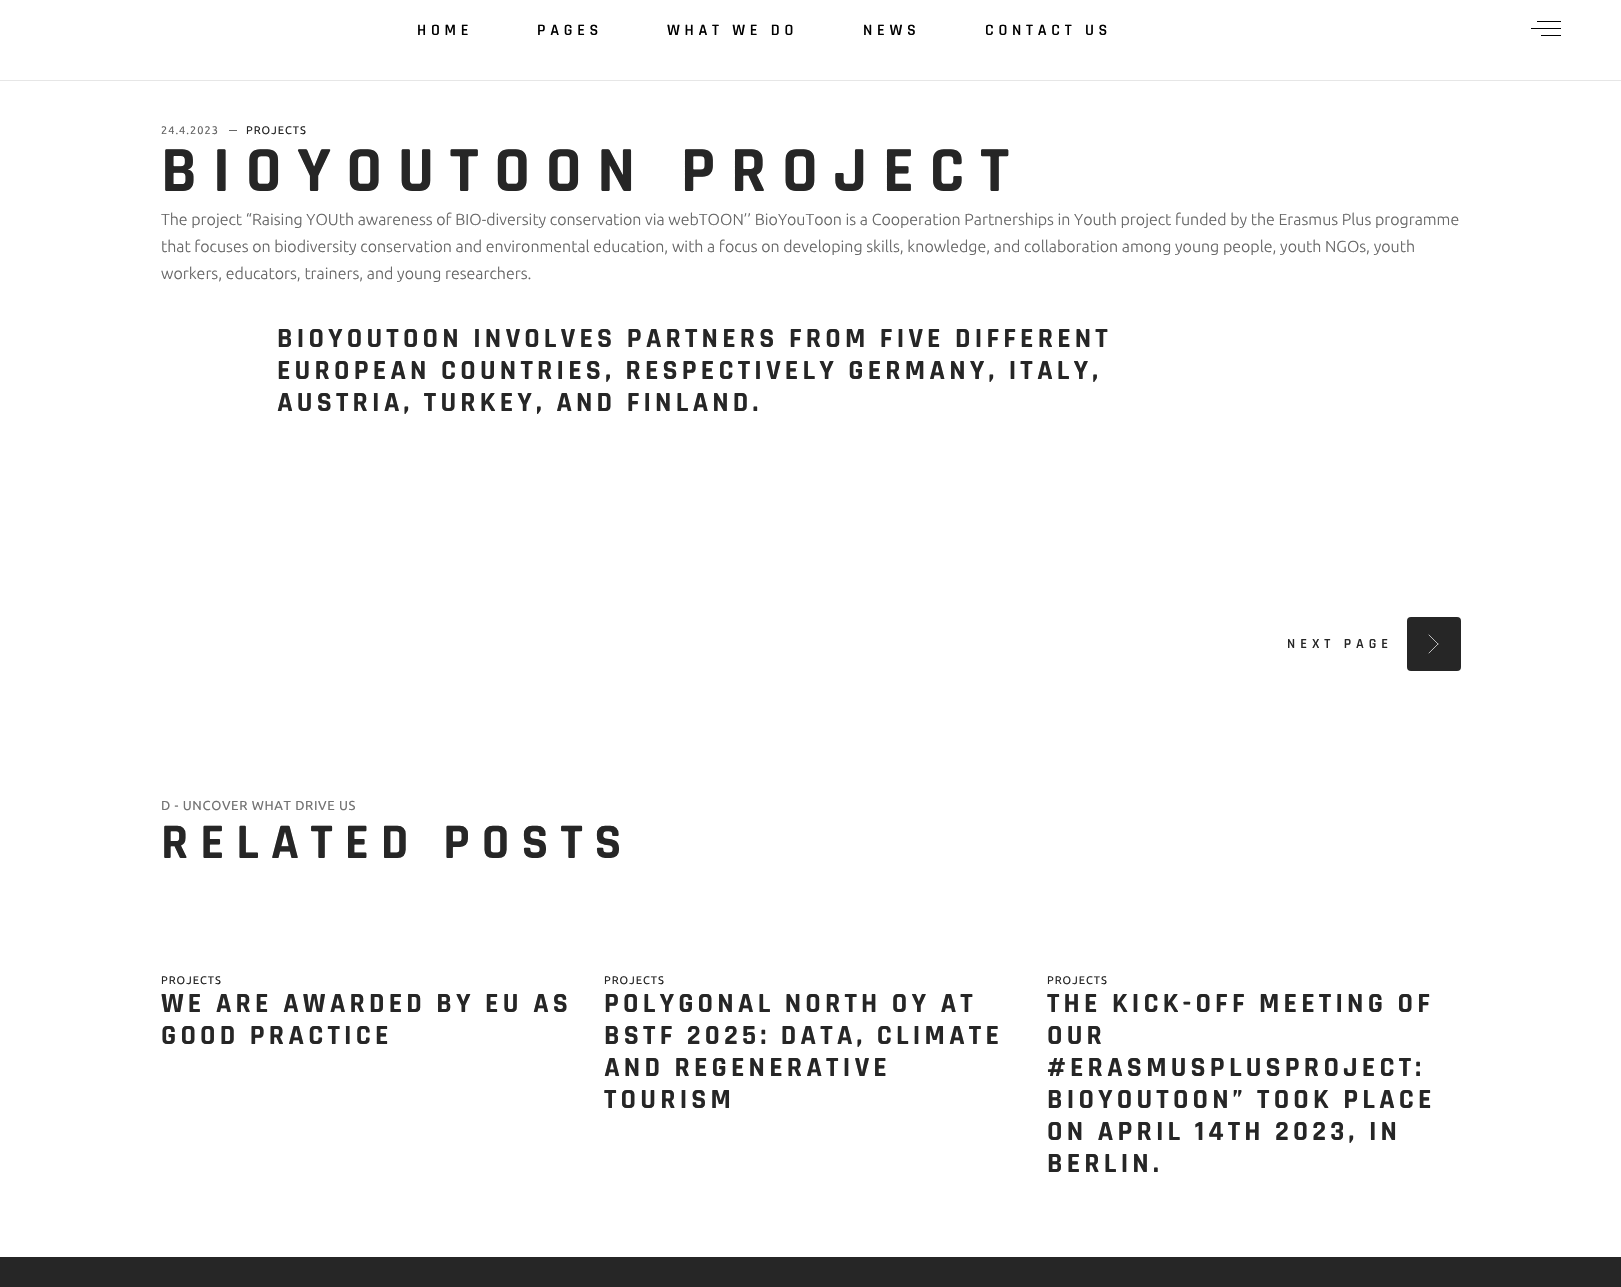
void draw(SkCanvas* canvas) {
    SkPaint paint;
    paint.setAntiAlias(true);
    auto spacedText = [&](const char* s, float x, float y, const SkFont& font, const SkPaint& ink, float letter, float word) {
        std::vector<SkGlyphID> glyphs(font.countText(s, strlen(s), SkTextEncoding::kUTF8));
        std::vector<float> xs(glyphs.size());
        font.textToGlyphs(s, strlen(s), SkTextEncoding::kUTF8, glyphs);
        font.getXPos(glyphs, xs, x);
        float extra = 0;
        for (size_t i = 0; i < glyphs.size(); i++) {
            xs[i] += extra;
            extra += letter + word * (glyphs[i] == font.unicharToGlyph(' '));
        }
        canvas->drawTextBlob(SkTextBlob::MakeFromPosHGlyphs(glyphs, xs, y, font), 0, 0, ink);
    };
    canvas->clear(0xFFFFFFFF);
    paint.setColor(0xFFE6E6E6);
    canvas->drawRect(SkRect::MakeXYWH(0, 80, 1621, 1), paint);
    SkFont font1(fontMgr->matchFamilyStyle("Rajdhani", SkFontStyle(600, SkFontStyle::kNormal_Width, SkFontStyle::kUpright_Slant)), 16);
    font1.setSubpixel(true);
    paint.setColor(0xFF000000);
    spacedText("HOME", 417, 35, font1, paint, 4.75f, 0);
    spacedText("PAGES", 537, 35, font1, paint, 4.75f, 0);
    spacedText("WHAT WE DO", 667, 35, font1, paint, 4.75f, 0);
    spacedText("NEWS", 863, 35, font1, paint, 4.75f, 0);
    spacedText("CONTACT US", 985, 35, font1, paint, 4.75f, 0);
    canvas->drawRect(SkRect::MakeXYWH(1537, 21, 24, 1), paint);
    canvas->drawRect(SkRect::MakeXYWH(1531, 28, 30, 1), paint);
    canvas->drawRect(SkRect::MakeXYWH(1541, 35, 20, 1), paint);
    SkFont font2(fontMgr->matchFamilyStyle("Ubuntu", SkFontStyle::Normal()), 11);
    font2.setSubpixel(true);
    paint.setColor(0xFF666666);
    spacedText("24.4.2023", 161, 134, font2, paint, 1, 0);
    canvas->drawRect(SkRect::MakeXYWH(229, 130, 8, 1), paint);
    paint.setColor(0xFF262626);
    spacedText("PROJECTS", 246, 134, font2, paint, 1, 0);
    SkFont font3(fontMgr->matchFamilyStyle("Rajdhani", SkFontStyle::Bold()), 65);
    font3.setSubpixel(true);
    spacedText("BIOYOUTOON PROJECT", 161, 191, font3, paint, 15.6f, 0);
    SkFont font4(fontMgr->matchFamilyStyle("Ubuntu", SkFontStyle(300, SkFontStyle::kNormal_Width, SkFontStyle::kUpright_Slant)), 16);
    font4.setSubpixel(true);
    paint.setColor(0xFF666666);
    canvas->drawString("The project “Raising YOUth awareness of BIO-diversity conservation via webTOON’’ BioYouToon is a Cooperation Partnerships in Youth project funded by the Erasmus Plus programme", 161, 225, font4, paint);
    canvas->drawString("that focuses on biodiversity conservation and environmental education, with a focus on developing skills, knowledge, and collaboration among young people, youth NGOs, youth", 161, 252, font4, paint);
    canvas->drawString("workers, educators, trainers, and young researchers.", 161, 279, font4, paint);
    SkFont font5(fontMgr->matchFamilyStyle("Rajdhani", SkFontStyle::Bold()), 28);
    font5.setSubpixel(true);
    paint.setColor(0xFF262626);
    spacedText("BIOYOUTOON INVOLVES PARTNERS FROM FIVE DIFFERENT", 277, 347, font5, paint, 4.2f, 0);
    spacedText("EUROPEAN COUNTRIES, RESPECTIVELY GERMANY, ITALY,", 277, 379, font5, paint, 4.2f, 0);
    spacedText("AUSTRIA, TURKEY, AND FINLAND.", 277, 411, font5, paint, 4.2f, 0);
    SkFont font6(fontMgr->matchFamilyStyle("Rajdhani", SkFontStyle(600, SkFontStyle::kNormal_Width, SkFontStyle::kUpright_Slant)), 14);
    font6.setSubpixel(true);
    spacedText("NEXT PAGE", 1287, 648, font6, paint, 5, 0);
    canvas->drawRoundRect(SkRect::MakeXYWH(1407, 617, 54, 54), 4, 4, paint);
    paint.setStyle(SkPaint::kStroke_Style);
    paint.setStrokeWidth(0.7f);
    paint.setStrokeCap(SkPaint::kRound_Cap);
    paint.setColor(0xFFFFFFFF);
    canvas->drawPath(SkPathBuilder().moveTo(1429, 635).lineTo(1438, 644).moveTo(1429, 653).lineTo(1438, 644).detach(), paint);
    SkFont font7(fontMgr->matchFamilyStyle("Ubuntu", SkFontStyle::Normal()), 13);
    font7.setSubpixel(true);
    paint.setStyle(SkPaint::kFill_Style);
    paint.setColor(0xFF737373);
    spacedText("D - UNCOVER WHAT DRIVE US", 161, 810, font7, paint, 0.65f, 0);
    SkFont font8(fontMgr->matchFamilyStyle("Rajdhani", SkFontStyle::Bold()), 50);
    font8.setSubpixel(true);
    paint.setColor(0xFF262626);
    spacedText("RELATED POSTS", 161, 858, font8, paint, 12, 0);
    spacedText("PROJECTS", 161, 984, font2, paint, 1, 0);
    spacedText("WE ARE AWARDED BY EU AS", 161, 1012, font5, paint, 4.2f, 0);
    spacedText("GOOD PRACTICE", 161, 1044, font5, paint, 4.2f, 0);
    spacedText("PROJECTS", 604, 984, font2, paint, 1, 0);
    spacedText("POLYGONAL NORTH OY AT", 604, 1012, font5, paint, 4.2f, 0);
    spacedText("BSTF 2025: DATA, CLIMATE", 604, 1044, font5, paint, 4.2f, 0);
    spacedText("AND REGENERATIVE", 604, 1076, font5, paint, 4.2f, 0);
    spacedText("TOURISM", 604, 1108, font5, paint, 4.2f, 0);
    spacedText("PROJECTS", 1047, 984, font2, paint, 1, 0);
    spacedText("THE KICK-OFF MEETING OF", 1047, 1012, font5, paint, 4.2f, 0);
    spacedText("OUR", 1047, 1044, font5, paint, 4.2f, 0);
    spacedText("#ERASMUSPLUSPROJECT:", 1047, 1076, font5, paint, 4.2f, 0);
    spacedText("BIOYOUTOON” TOOK PLACE", 1047, 1108, font5, paint, 4.2f, 0);
    spacedText("ON APRIL 14TH 2023, IN", 1047, 1140, font5, paint, 4.2f, 0);
    spacedText("BERLIN.", 1047, 1172, font5, paint, 4.2f, 0);
    canvas->drawRect(SkRect::MakeXYWH(0, 1257, 1621, 30), paint);
}
